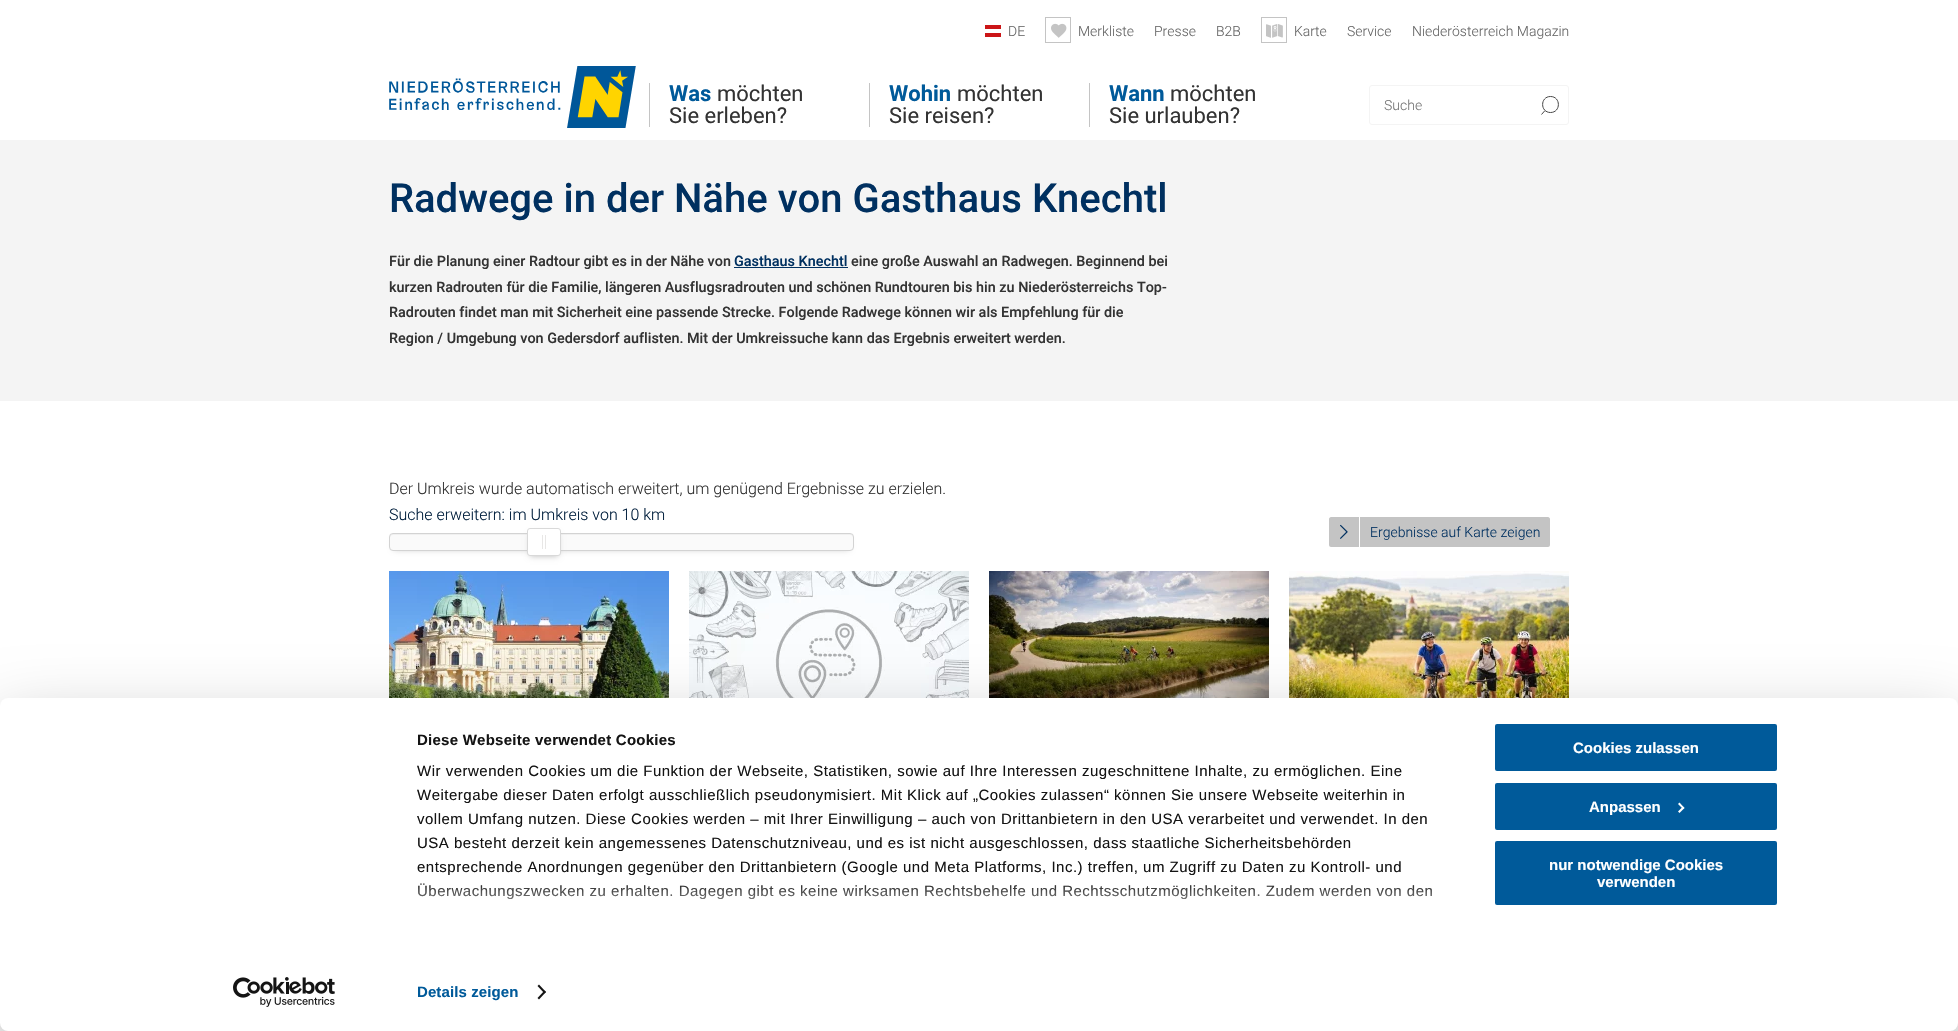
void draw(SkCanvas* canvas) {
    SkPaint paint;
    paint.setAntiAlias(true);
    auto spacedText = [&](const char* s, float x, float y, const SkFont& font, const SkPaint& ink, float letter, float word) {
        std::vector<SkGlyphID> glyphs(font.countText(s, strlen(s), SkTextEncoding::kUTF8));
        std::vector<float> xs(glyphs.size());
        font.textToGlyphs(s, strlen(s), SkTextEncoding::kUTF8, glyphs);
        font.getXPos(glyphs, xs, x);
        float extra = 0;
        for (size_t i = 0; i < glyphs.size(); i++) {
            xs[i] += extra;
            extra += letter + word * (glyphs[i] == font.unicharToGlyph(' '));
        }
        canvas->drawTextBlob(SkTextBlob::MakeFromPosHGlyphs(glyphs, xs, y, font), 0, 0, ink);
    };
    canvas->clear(0xFFFFFFFF);
    canvas->drawImageRect(SkImages::DeferredFromEncodedData(SkData::MakeFromFileName("img1.png")), SkRect::MakeXYWH(389, 66, 247, 62), SkSamplingOptions());
    paint.setColor(0xFFCB1517);
    canvas->drawRect(SkRect::MakeXYWH(985, 33, 16, 4), paint);
    canvas->drawRect(SkRect::MakeXYWH(985, 25, 16, 4), paint);
    SkFont font1(fontMgr->matchFamilyStyle("Roboto", SkFontStyle(300, SkFontStyle::kNormal_Width, SkFontStyle::kUpright_Slant)), 14);
    font1.setSubpixel(true);
    paint.setColor(0xFF666666);
    canvas->drawString("DE", 1008, 36, font1, paint);
    paint.setStyle(SkPaint::kStroke_Style);
    paint.setStrokeWidth(1);
    paint.setColor(0xFFC4C4C4);
    canvas->drawRect(SkRect::MakeXYWH(1045.5f, 17.5f, 25, 25), paint);
    canvas->drawImageRect(SkImages::DeferredFromEncodedData(SkData::MakeFromFileName("img2.png")), SkRect::MakeXYWH(1051, 23, 16, 15), SkSamplingOptions());
    paint.setStyle(SkPaint::kFill_Style);
    paint.setColor(0xFF666666);
    canvas->drawString("Merkliste", 1078, 36, font1, paint);
    canvas->drawString("Presse", 1154, 36, font1, paint);
    canvas->drawString("B2B", 1216, 36, font1, paint);
    paint.setStyle(SkPaint::kStroke_Style);
    paint.setColor(0xFFC4C4C4);
    canvas->drawRect(SkRect::MakeXYWH(1261.5f, 17.5f, 25, 25), paint);
    canvas->drawImageRect(SkImages::DeferredFromEncodedData(SkData::MakeFromFileName("img3.png")), SkRect::MakeXYWH(1266, 24, 17, 14), SkSamplingOptions());
    paint.setStyle(SkPaint::kFill_Style);
    paint.setColor(0xFF666666);
    canvas->drawString("Karte", 1294, 36, font1, paint);
    canvas->drawString("Service", 1347, 36, font1, paint);
    canvas->drawString("Niederösterreich Magazin", 1412, 36, font1, paint);
    paint.setColor(0xFFC4C4C4);
    canvas->drawRect(SkRect::MakeXYWH(649, 83, 1, 44), paint);
    SkFont font2(fontMgr->matchFamilyStyle("Roboto", SkFontStyle::Bold()), 22);
    font2.setSubpixel(true);
    paint.setColor(0xFF005A9A);
    canvas->drawString("Was", 669, 101, font2, paint);
    SkFont font3(fontMgr->matchFamilyStyle("Roboto", SkFontStyle::Normal()), 22);
    font3.setSubpixel(true);
    paint.setColor(0xFF333333);
    canvas->drawString("möchten", 717, 101, font3, paint);
    canvas->drawString("Sie erleben?", 669, 123, font3, paint);
    paint.setColor(0xFFC4C4C4);
    canvas->drawRect(SkRect::MakeXYWH(869, 83, 1, 44), paint);
    paint.setColor(0xFF005A9A);
    canvas->drawString("Wohin", 889, 101, font2, paint);
    paint.setColor(0xFF333333);
    canvas->drawString("möchten", 957, 101, font3, paint);
    canvas->drawString("Sie reisen?", 889, 123, font3, paint);
    paint.setColor(0xFFC4C4C4);
    canvas->drawRect(SkRect::MakeXYWH(1089, 83, 1, 44), paint);
    paint.setColor(0xFF005A9A);
    canvas->drawString("Wann", 1109, 101, font2, paint);
    paint.setColor(0xFF333333);
    canvas->drawString("möchten", 1170, 101, font3, paint);
    canvas->drawString("Sie urlauben?", 1109, 123, font3, paint);
    paint.setStyle(SkPaint::kStroke_Style);
    paint.setColor(0xFF464646);
    canvas->drawPath(SkPathBuilder().moveTo(1550.5f, 96.5f).cubicTo(1561, 96.5f, 1561, 112.5f, 1550.5f, 112.5f).cubicTo(1540, 112.5f, 1540, 96.5f, 1550.5f, 96.5f).close().moveTo(1545, 110.5f).lineTo(1541.5f, 114.5f).detach(), paint);
    paint.setColor(0xFFF4F4F4);
    canvas->drawRoundRect(SkRect::MakeXYWH(1369.5f, 85.5f, 199, 39), 2.5f, 2.5f, paint);
    paint.setStyle(SkPaint::kFill_Style);
    paint.setColor(0xFF757575);
    canvas->drawString("Suche", 1384, 110, font1, paint);
    paint.setColor(0xFFF4F4F4);
    canvas->drawRect(SkRect::MakeXYWH(0, 140, 1958, 261), paint);
    SkFont font4(fontMgr->matchFamilyStyle("Roboto", SkFontStyle(500, SkFontStyle::kNormal_Width, SkFontStyle::kUpright_Slant)), 40);
    font4.setSubpixel(true);
    paint.setColor(0xFF003060);
    canvas->drawString("Radwege in der Nähe von Gasthaus Knechtl", 389, 212, font4, paint);
    SkFont font5(fontMgr->matchFamilyStyle("Roboto", SkFontStyle(500, SkFontStyle::kNormal_Width, SkFontStyle::kUpright_Slant)), 14.4f);
    font5.setSubpixel(true);
    paint.setColor(0xFF333333);
    canvas->drawString("Für die Planung einer Radtour gibt es in der Nähe von", 389, 266, font5, paint);
    paint.setColor(0xFF003060);
    canvas->drawString("Gasthaus Knechtl", 734, 266, font5, paint);
    canvas->drawRect(SkRect::MakeXYWH(734, 267, 114, 1), paint);
    paint.setColor(0xFF333333);
    canvas->drawString("eine große Auswahl an Radwegen. Beginnend bei", 851, 266, font5, paint);
    canvas->drawString("kurzen Radrouten für die Familie, längeren Ausflugsradrouten und schönen Rundtouren bis hin zu Niederösterreichs Top-", 389, 292, font5, paint);
    canvas->drawString("Radrouten findet man mit Sicherheit eine passende Strecke. Folgende Radwege können wir als Empfehlung für die", 389, 317, font5, paint);
    canvas->drawString("Region / Umgebung von Gedersdorf auflisten. Mit der Umkreissuche kann das Ergebnis erweitert werden.", 389, 343, font5, paint);
    SkFont font6(fontMgr->matchFamilyStyle("Roboto", SkFontStyle(300, SkFontStyle::kNormal_Width, SkFontStyle::kUpright_Slant)), 16);
    font6.setSubpixel(true);
    canvas->drawString("Der Umkreis wurde automatisch erweitert, um genügend Ergebnisse zu erzielen.", 389, 494, font6, paint);
    paint.setColor(0xFF001E3C);
    canvas->drawString("Suche erweitern: im Umkreis von 10 km", 389, 520, font6, paint);
    paint.setColor(0xFFBBBBBB);
    paint.setMaskFilter(SkMaskFilter::MakeBlur(kNormal_SkBlurStyle, 3));
    canvas->drawRect(SkRect::MakeXYWH(394, 541, 455, 8), paint);
    paint.setMaskFilter(nullptr);
    paint.setColor(0xFFFAFAFA);
    canvas->drawRoundRect(SkRect::MakeXYWH(389, 533, 465, 18), 4, 4, paint);
    paint.setColor(0xFFF0F0F0);
    canvas->drawPath(SkPathBuilder().moveTo(393, 535).lineTo(850, 535).cubicTo(852, 535, 853, 536, 853, 538).cubicTo(853, 536, 852, 534, 850, 534).lineTo(392, 534).lineTo(390, 536).lineTo(390, 538).cubicTo(390, 536, 391, 535, 393, 535).close().detach(), paint);
    paint.setStyle(SkPaint::kStroke_Style);
    paint.setColor(0xFFD3D3D3);
    canvas->drawRoundRect(SkRect::MakeXYWH(389.5f, 533.5f, 464, 17), 3.5f, 3.5f, paint);
    paint.setStyle(SkPaint::kFill_Style);
    paint.setColor(0xFFBBBBBB);
    paint.setMaskFilter(SkMaskFilter::MakeBlur(kNormal_SkBlurStyle, 3));
    canvas->drawRect(SkRect::MakeXYWH(530, 534, 28, 22), paint);
    paint.setMaskFilter(nullptr);
    paint.setColor(0xFFFFFFFF);
    canvas->drawRoundRect(SkRect::MakeXYWH(527.5f, 528.5f, 33, 27), 2.5f, 2.5f, paint);
    paint.setStyle(SkPaint::kStroke_Style);
    paint.setColor(0xFFD9D9D9);
    canvas->drawRoundRect(SkRect::MakeXYWH(527.5f, 528.5f, 33, 27), 2.5f, 2.5f, paint);
    paint.setStyle(SkPaint::kFill_Style);
    paint.setColor(0xFFE8E7E6);
    canvas->drawRect(SkRect::MakeXYWH(542, 535, 1, 14), paint);
    canvas->drawRect(SkRect::MakeXYWH(545, 535, 1, 14), paint);
    paint.setColor(0xFFC4C4C4);
    canvas->drawPath(SkPathBuilder().moveTo(1331, 517).lineTo(1359, 517).lineTo(1359, 547).lineTo(1331, 547).cubicTo(1330, 547, 1329, 546, 1329, 545).lineTo(1329, 519).cubicTo(1329, 518, 1330, 517, 1331, 517).close().detach(), paint);
    canvas->drawImageRect(SkImages::DeferredFromEncodedData(SkData::MakeFromFileName("img4.png")), SkRect::MakeXYWH(1340, 524, 8, 15), SkSamplingOptions());
    canvas->drawPath(SkPathBuilder().moveTo(1360, 517).lineTo(1548, 517).cubicTo(1549, 517, 1550, 518, 1550, 519).lineTo(1550, 545).cubicTo(1550, 546, 1549, 547, 1548, 547).lineTo(1360, 547).close().detach(), paint);
    paint.setColor(0xFF003060);
    canvas->drawString("Ergebnisse auf Karte zeigen", 1370, 537, font1, paint);
    canvas->drawImageRect(SkImages::DeferredFromEncodedData(SkData::MakeFromFileName("img5.png")), SkRect::MakeXYWH(389, 571, 280, 127), SkSamplingOptions());
    canvas->drawImageRect(SkImages::DeferredFromEncodedData(SkData::MakeFromFileName("img6.png")), SkRect::MakeXYWH(689, 571, 280, 127), SkSamplingOptions());
    canvas->drawImageRect(SkImages::DeferredFromEncodedData(SkData::MakeFromFileName("img7.png")), SkRect::MakeXYWH(989, 571, 280, 127), SkSamplingOptions());
    canvas->drawImageRect(SkImages::DeferredFromEncodedData(SkData::MakeFromFileName("img8.png")), SkRect::MakeXYWH(1289, 571, 280, 127), SkSamplingOptions());
    paint.setColor(0x4D000000);
    paint.setMaskFilter(SkMaskFilter::MakeBlur(kNormal_SkBlurStyle, 35));
    canvas->drawRoundRect(SkRect::MakeXYWH(0, 728, 1958, 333), 8, 8, paint);
    paint.setMaskFilter(nullptr);
    paint.setColor(0xFFFFFFFF);
    canvas->drawRoundRect(SkRect::MakeXYWH(0, 698, 1958, 333), 8, 8, paint);
    SkFont font7(fontMgr->matchFamilyStyle("Liberation Sans", SkFontStyle::Bold()), 15);
    font7.setSubpixel(true);
    paint.setColor(0xFF141414);
    spacedText("Diese Webseite verwendet Cookies", 417, 745, font7, paint, 0.25f, 0);
    SkFont font8(fontMgr->matchFamilyStyle("Liberation Sans", SkFontStyle::Normal()), 15);
    font8.setSubpixel(true);
    spacedText("Wir verwenden Cookies um die Funktion der Webseite, Statistiken, sowie auf Ihre Interessen zugeschnittene Inhalte, zu ermöglichen. Eine", 417, 776, font8, paint, 0.5f, 0);
    spacedText("Weitergabe dieser Daten erfolgt ausschließlich pseudonymisiert. Mit Klick auf „Cookies zulassen“ können Sie unsere Webseite weiterhin in", 417, 800, font8, paint, 0.5f, 0);
    spacedText("vollem Umfang nutzen. Diese Cookies werden – mit Ihrer Einwilligung – auch von Drittanbietern in den USA verarbeitet und verwendet. In den", 417, 824, font8, paint, 0.5f, 0);
    spacedText("USA besteht derzeit kein angemessenes Datenschutzniveau, und es ist nicht ausgeschlossen, dass staatliche Sicherheitsbehörden", 417, 848, font8, paint, 0.5f, 0);
    spacedText("entsprechende Anordnungen gegenüber den Drittanbietern (Google und Meta Platforms, Inc.) treffen, um Zugriff zu Daten zu Kontroll- und", 417, 872, font8, paint, 0.5f, 0);
    spacedText("Überwachungszwecken zu erhalten. Dagegen gibt es keine wirksamen Rechtsbehelfe und Rechtsschutzmöglichkeiten. Zudem werden von den", 417, 896, font8, paint, 0.5f, 0);
    {
        const SkColor colors[] = {0xFFFFFFFF, 0xCCFFFFFF, 0x00FFFFFF};
        const float stops[] = {0, 0.5f, 1};
        const SkPoint ends[] = {{931, 955}, {931, 880}};
        paint.setShader(SkGradientShader::MakeLinear(ends, colors, stops, 3, SkTileMode::kClamp));
        paint.setAlpha(255);
    }
    canvas->drawRect(SkRect::MakeXYWH(418, 883, 1014, 17), paint);
    paint.setShader(nullptr);
    paint.setColor(0xFF005A9A);
    spacedText("Details zeigen", 417, 997, font7, paint, 0.1f, 0);
    paint.setColor(0xFF141414);
    canvas->drawPath(SkPathBuilder().moveTo(539, 984.5f).lineTo(546, 992).lineTo(544.5f, 993.5f).lineTo(537.5f, 986).close().detach(), paint);
    canvas->drawPath(SkPathBuilder().moveTo(544.5f, 990.5f).lineTo(546, 992).lineTo(539, 999.5f).lineTo(537.5f, 998).close().detach(), paint);
    paint.setColor(0xFF005A9A);
    canvas->drawRoundRect(SkRect::MakeXYWH(1494, 723, 284, 49), 3, 3, paint);
    paint.setStyle(SkPaint::kStroke_Style);
    paint.setStrokeWidth(2);
    paint.setColor(0xFFFFFFFF);
    canvas->drawRoundRect(SkRect::MakeXYWH(1494, 723, 284, 49), 3, 3, paint);
    paint.setStyle(SkPaint::kFill_Style);
    canvas->drawString("Cookies zulassen", 1573, 753, font7, paint);
    paint.setColor(0xFF005A9A);
    canvas->drawRoundRect(SkRect::MakeXYWH(1494, 782, 284, 49), 3, 3, paint);
    paint.setStyle(SkPaint::kStroke_Style);
    paint.setColor(0xFFFFFFFF);
    canvas->drawRoundRect(SkRect::MakeXYWH(1494, 782, 284, 49), 3, 3, paint);
    paint.setStyle(SkPaint::kFill_Style);
    canvas->drawString("Anpassen", 1589, 812, font7, paint);
    canvas->drawPath(SkPathBuilder().moveTo(1679.5f, 802.5f).lineTo(1684.5f, 808).lineTo(1683, 809).lineTo(1678, 804).close().detach(), paint);
    canvas->drawPath(SkPathBuilder().moveTo(1683, 806.5f).lineTo(1684.5f, 808).lineTo(1679.5f, 813).lineTo(1678, 811.5f).close().detach(), paint);
    paint.setColor(0xFF005A9A);
    canvas->drawRoundRect(SkRect::MakeXYWH(1494, 840, 284, 66), 3, 3, paint);
    paint.setStyle(SkPaint::kStroke_Style);
    paint.setColor(0xFFFFFFFF);
    canvas->drawRoundRect(SkRect::MakeXYWH(1494, 840, 284, 66), 3, 3, paint);
    paint.setStyle(SkPaint::kFill_Style);
    canvas->drawString("nur notwendige Cookies", 1549, 870, font7, paint);
    canvas->drawString("verwenden", 1597, 887, font7, paint);
    canvas->drawImageRect(SkImages::DeferredFromEncodedData(SkData::MakeFromFileName("img9.png")), SkRect::MakeXYWH(233, 977, 102, 30), SkSamplingOptions());
}
